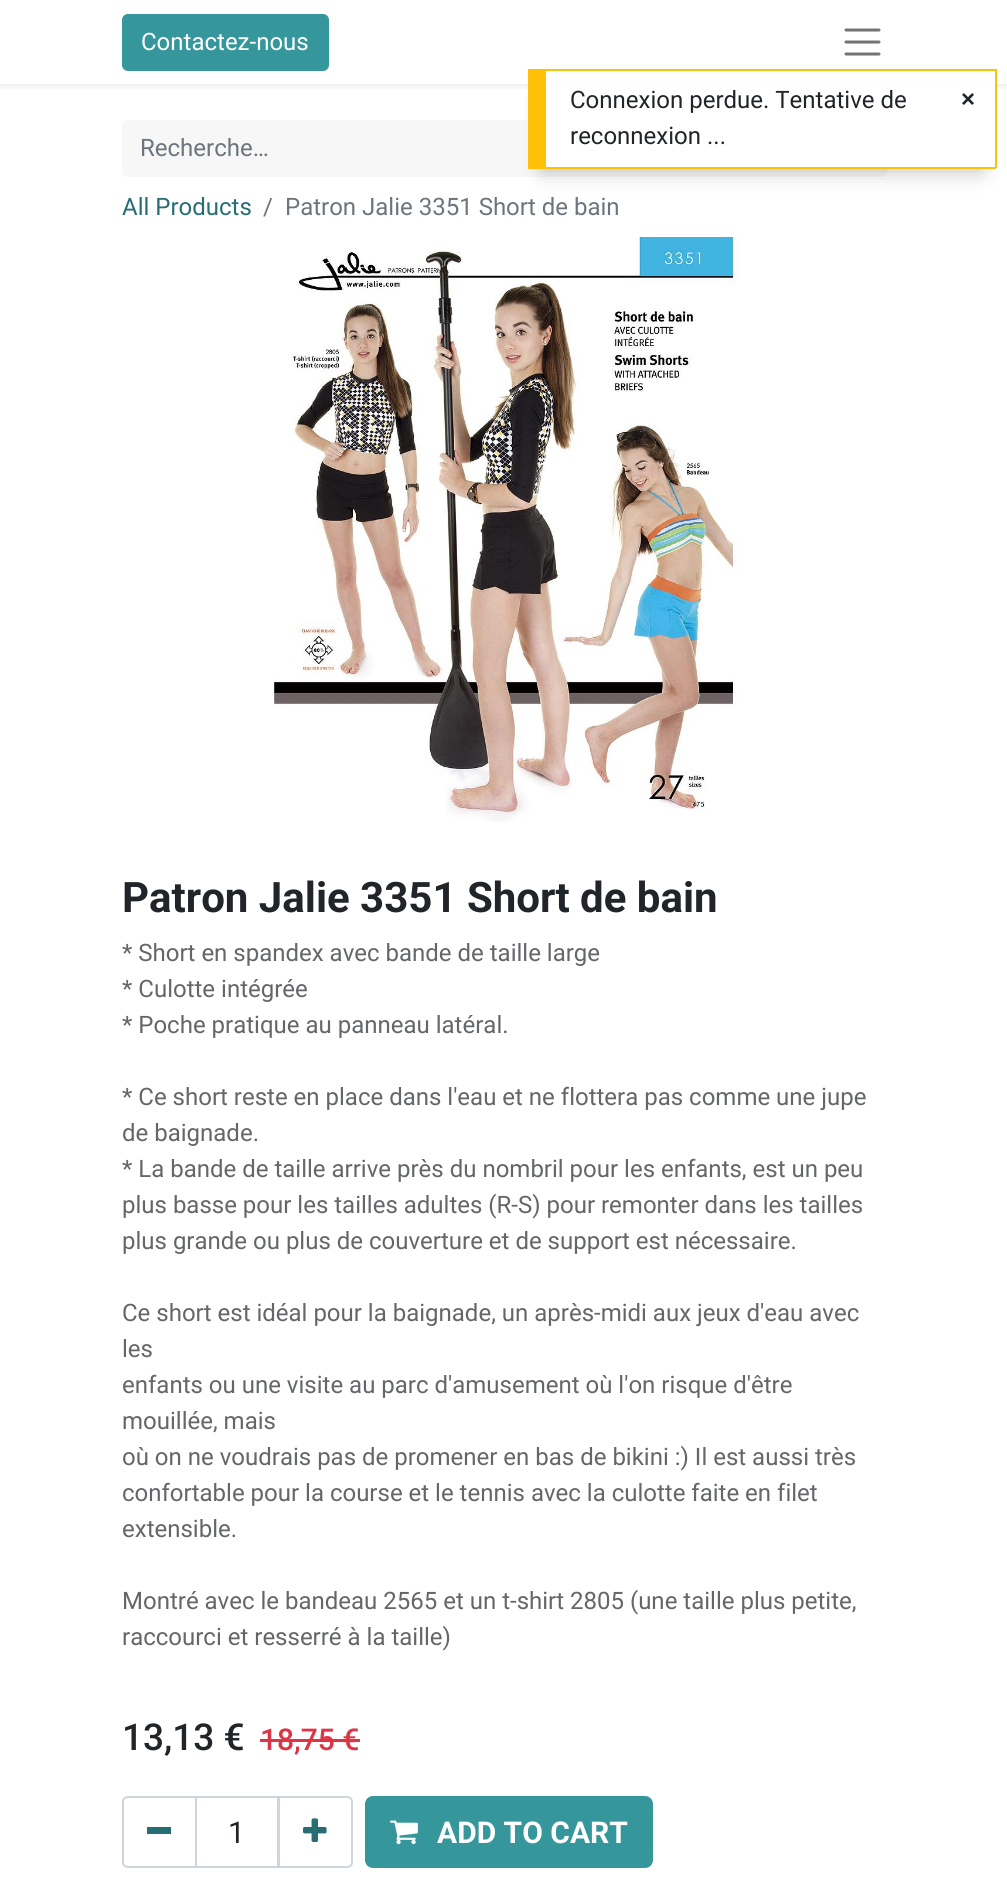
#include <cairo.h>
#include <math.h>
#include <stddef.h>

static cairo_t *c;
static void C(unsigned color){cairo_set_source_rgb(c, (color >> 16) / 255.0, (color >> 8 & 255) / 255.0, (color & 255) / 255.0);}
static void F(const char *family, double size, int italic, int bold){cairo_select_font_face(c, family, italic ? CAIRO_FONT_SLANT_ITALIC : CAIRO_FONT_SLANT_NORMAL,bold ? CAIRO_FONT_WEIGHT_BOLD : CAIRO_FONT_WEIGHT_NORMAL);cairo_set_font_size(c, size);}
static void T(double x, double y, const char *s){cairo_move_to(c, x, y);cairo_show_text(c, s);}
static void R(double x, double y, double w, double h){cairo_rectangle(c, x, y, w, h);cairo_fill(c);}
static void Q(double x, double y, double w, double h, double r){cairo_new_sub_path(c);cairo_arc(c, x + w - r, y + h - r, r, 0, M_PI / 2);cairo_arc(c, x + r, y + h - r, r, M_PI / 2, M_PI);cairo_arc(c, x + r, y + r, r, M_PI, 1.5 * M_PI);cairo_arc(c, x + w - r, y + r, r, 1.5 * M_PI, 2 * M_PI);cairo_close_path(c);}
static void S(double x, double y, double w, double h, double r, double blur, double alpha){cairo_push_group_with_content(c, CAIRO_CONTENT_ALPHA);cairo_set_operator(c, CAIRO_OPERATOR_SOURCE);for (int i = 15; i >= -15 && fmin(w, h) + blur * i / 3 > 0; i -= 2) {double e = blur * i / 6;cairo_set_source_rgba(c, 0, 0, 0, alpha * erfc((i - 1) / 8.5) / 2);Q(x - e, y - e, w + 2 * e, h + 2 * e, fmax(0, fmin(r + e + blur * .6, fmin(w, h) / 2 + e)));cairo_fill(c);}cairo_pattern_t *soft = cairo_pop_group(c);cairo_mask(c, soft);cairo_pattern_destroy(soft);}
static void I(const char *path, double x, double y, double w, double h){cairo_surface_t *image = cairo_image_surface_create_from_png(path);cairo_save(c);cairo_set_source_surface(c, image, x, y);cairo_rectangle(c, x, y, w, h);cairo_fill(c);cairo_restore(c);cairo_surface_destroy(image);}
int main(void) {
cairo_surface_t *surface = cairo_image_surface_create(CAIRO_FORMAT_RGB24, 1007, 1883);
c = cairo_create(surface);
cairo_font_options_t *options = cairo_font_options_create();
cairo_font_options_set_hint_metrics(options, CAIRO_HINT_METRICS_OFF);
cairo_font_options_set_hint_style(options, CAIRO_HINT_STYLE_NONE);
cairo_set_font_options(c, options);
cairo_set_miter_limit(c, 4);
C(0xffffff);
cairo_paint(c);
cairo_save(c);
cairo_rectangle(c,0,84,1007,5);
cairo_clip(c);
C(0x000000);
S(0,3,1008,84,0,3,.07);
cairo_restore(c);
C(0x35979c);
Q(123,15,205,55,5);
cairo_fill_preserve(c);
cairo_stroke(c);
F("Roboto",24,0,0);
C(0xffffff);
T(141,50,"Contactez-nous");
cairo_new_path(c);
cairo_move_to(c,846,30);
cairo_line_to(c,879,30);
cairo_move_to(c,846,42);
cairo_line_to(c,879,42);
cairo_move_to(c,846,54);
cairo_line_to(c,879,54);
C(0x737373);
cairo_set_line_width(c,3);
cairo_set_line_cap(c,CAIRO_LINE_CAP_ROUND);
cairo_stroke(c);
C(0xf7f7f7);
cairo_new_path(c);
cairo_move_to(c,128,120);
cairo_line_to(c,825,120);
cairo_line_to(c,825,177);
cairo_line_to(c,128,177);
cairo_curve_to(c,124.5,177,122,174.5,122,171);
cairo_line_to(c,122,126);
cairo_curve_to(c,122,122.5,124.5,120,128,120);
cairo_close_path(c);
cairo_fill(c);
C(0x6c757d);
T(140,156,"Recherche…");
C(0xf7f7f7);
cairo_new_path(c);
cairo_move_to(c,824,120);
cairo_line_to(c,881,120);
cairo_curve_to(c,884.5,120,887,122.5,887,126);
cairo_line_to(c,887,171);
cairo_curve_to(c,887,174.5,884.5,177,881,177);
cairo_line_to(c,824,177);
cairo_close_path(c);
cairo_fill(c);
C(0x276e72);
T(122,215,"All Products");
C(0x6c757d);
T(263,215,"/");
T(285,215,"Patron Jalie 3351 Short de bain");
I("1.png",274,237,465,585);
F("Roboto",42,0,1);
C(0x212529);
T(122,912,"Patron Jalie 3351 Short de bain");
F("Roboto",24,0,0);
C(0x646669);
T(122,961,"* Short en spandex avec bande de taille large");
T(122,997,"* Culotte intégrée");
T(122,1033,"* Poche pratique au panneau latéral.");
T(122,1105,"* Ce short reste en place dans l'eau et ne flottera pas comme une jupe");
T(122,1141,"de baignade.");
T(122,1177,"* La bande de taille arrive près du nombril pour les enfants, est un peu");
T(122,1213,"plus basse pour les tailles adultes (R-S) pour remonter dans les tailles");
T(122,1249,"plus grande ou plus de couverture et de support est nécessaire.");
T(122,1321,"Ce short est idéal pour la baignade, un après-midi aux jeux d'eau avec");
T(122,1357,"les");
T(122,1393,"enfants ou une visite au parc d'amusement où l'on risque d'être");
T(122,1429,"mouillée, mais");
T(122,1465,"où on ne voudrais pas de promener en bas de bikini :) Il est aussi très");
T(122,1501,"confortable pour la course et le tennis avec la culotte faite en filet");
T(122,1537,"extensible.");
T(122,1609,"Montré avec le bandeau 2565 et un t-shirt 2805 (une taille plus petite,");
T(122,1645,"raccourci et resserré à la taille)");
F("Roboto Medium",37,0,0);
C(0x212529);
T(122,1750,"13,13 €");
F("Roboto Medium",30,0,0);
C(0xdc3545);
T(260,1750,"18,75 €");
R(260,1739,100,3);
cairo_rectangle(c,196,1797,82,70);
C(0xced4da);
cairo_set_line_width(c,2);
cairo_set_line_cap(c,CAIRO_LINE_CAP_BUTT);
cairo_stroke(c);
cairo_new_path(c);
cairo_move_to(c,128,1797);
cairo_line_to(c,196,1797);
cairo_line_to(c,196,1867);
cairo_line_to(c,128,1867);
cairo_curve_to(c,125,1867,123,1865,123,1862);
cairo_line_to(c,123,1802);
cairo_curve_to(c,123,1799,125,1797,128,1797);
cairo_close_path(c);
cairo_stroke(c);
C(0x276e72);
R(147,1827,24,7);
F("Roboto",30,0,0);
C(0x212529);
T(228,1843,"1");
cairo_new_path(c);
cairo_move_to(c,279,1797);
cairo_line_to(c,347,1797);
cairo_curve_to(c,350,1797,352,1799,352,1802);
cairo_line_to(c,352,1862);
cairo_curve_to(c,352,1865,350,1867,347,1867);
cairo_line_to(c,279,1867);
cairo_close_path(c);
C(0xced4da);
cairo_stroke(c);
I("2.png",303,1818,24,24);
C(0x35979c);
Q(366,1797,286,70,7);
cairo_fill_preserve(c);
cairo_stroke(c);
I("3.png",390,1820,28,25);
F("Roboto",30,0,1);
C(0xffffff);
T(437,1843,"ADD TO CART");
C(0x000000);
S(543,102,438,69,0,10.5,.25);
C(0xffffff);
R(546,84,449,83);
C(0xffc107);
R(546,69,450,2);
R(995,69,2,99);
R(528,167,468,2);
R(528,69,18,98);
F("Roboto",24,0,0);
C(0x212529);
T(570,108,"Connexion perdue. Tentative de");
T(570,144,"reconnexion ...");
F("Liberation Sans",24,0,1);
T(961,107,"×");
cairo_surface_write_to_png(surface, "o.png");
cairo_font_options_destroy(options);
cairo_destroy(c);
cairo_surface_destroy(surface);
return 0;
}
